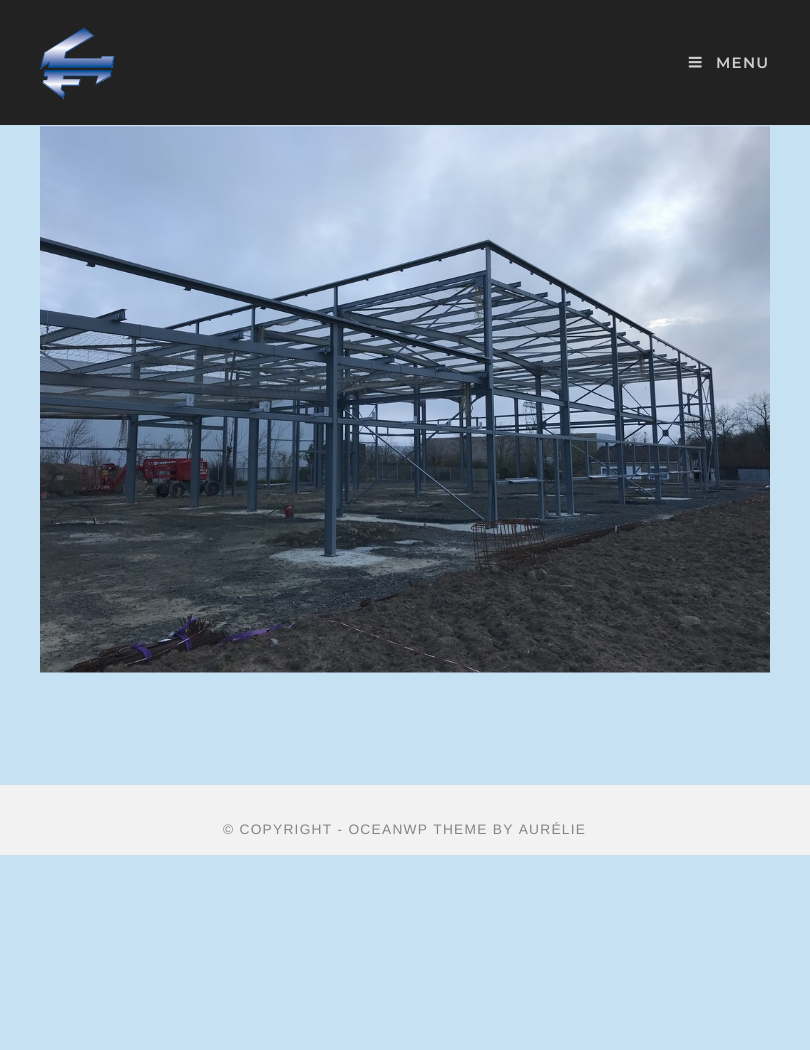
#include <cairo.h>
#include <math.h>
#include <stddef.h>

static cairo_t *c;
static void C(unsigned color){cairo_set_source_rgb(c, (color >> 16) / 255.0, (color >> 8 & 255) / 255.0, (color & 255) / 255.0);}
static void F(const char *family, double size, int italic, int bold){cairo_select_font_face(c, family, italic ? CAIRO_FONT_SLANT_ITALIC : CAIRO_FONT_SLANT_NORMAL,bold ? CAIRO_FONT_WEIGHT_BOLD : CAIRO_FONT_WEIGHT_NORMAL);cairo_set_font_size(c, size);}
static void L(double x, double y, const char *s, double letter, double word){cairo_move_to(c, x, y);while (*s) {char ch[5] = {0};int n = 0;do ch[n++] = *s++; while ((*s & 0xC0) == 0x80);cairo_show_text(c, ch);cairo_rel_move_to(c, letter + word * (*ch == ' '), 0);}}
static void R(double x, double y, double w, double h){cairo_rectangle(c, x, y, w, h);cairo_fill(c);}
static void I(const char *path, double x, double y, double w, double h){cairo_surface_t *image = cairo_image_surface_create_from_png(path);cairo_save(c);cairo_set_source_surface(c, image, x, y);cairo_rectangle(c, x, y, w, h);cairo_fill(c);cairo_restore(c);cairo_surface_destroy(image);}
int main(void) {
cairo_surface_t *surface = cairo_image_surface_create(CAIRO_FORMAT_RGB24, 810, 1050);
c = cairo_create(surface);
cairo_font_options_t *options = cairo_font_options_create();
cairo_font_options_set_hint_metrics(options, CAIRO_HINT_METRICS_OFF);
cairo_font_options_set_hint_style(options, CAIRO_HINT_STYLE_NONE);
cairo_set_font_options(c, options);
cairo_set_miter_limit(c, 4);
C(0xc6e1f2);
cairo_paint(c);
C(0x222222);
R(0,0,810,125);
I("1.png",40,27,75,72);
I("2.png",688,56,14,12);
F("Montserrat SemiBold",15,0,0);
C(0xcecece);
L(716,68,"MENU",1.25,0);
I("3.png",40,126,730,547);
C(0xf2f2f2);
R(0,785,810,70);
F("Liberation Sans",13.75,0,0);
C(0x848484);
L(223,834,"© COPYRIGHT - OCEANWP THEME BY AURÉLIE",1.25,0);
cairo_surface_write_to_png(surface, "o.png");
cairo_font_options_destroy(options);
cairo_destroy(c);
cairo_surface_destroy(surface);
return 0;
}
